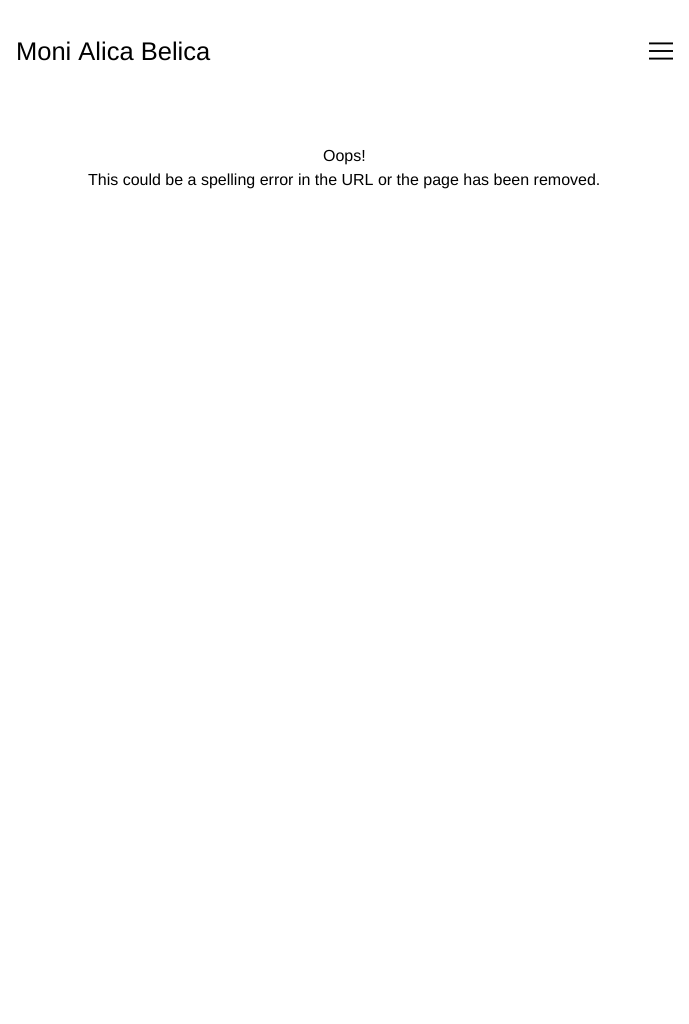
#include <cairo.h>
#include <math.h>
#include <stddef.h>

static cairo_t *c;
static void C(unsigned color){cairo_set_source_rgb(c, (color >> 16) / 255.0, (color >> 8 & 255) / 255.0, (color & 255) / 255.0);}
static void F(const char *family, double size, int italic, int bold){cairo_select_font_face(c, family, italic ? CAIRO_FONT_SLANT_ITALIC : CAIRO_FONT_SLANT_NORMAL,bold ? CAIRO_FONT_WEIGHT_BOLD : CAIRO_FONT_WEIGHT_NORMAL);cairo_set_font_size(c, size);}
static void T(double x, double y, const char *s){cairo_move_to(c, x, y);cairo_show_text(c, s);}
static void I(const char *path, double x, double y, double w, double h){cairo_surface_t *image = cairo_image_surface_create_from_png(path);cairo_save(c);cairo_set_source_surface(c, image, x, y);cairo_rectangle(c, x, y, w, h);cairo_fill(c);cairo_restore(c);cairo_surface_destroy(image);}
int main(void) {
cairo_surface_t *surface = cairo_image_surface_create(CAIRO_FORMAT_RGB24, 689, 1024);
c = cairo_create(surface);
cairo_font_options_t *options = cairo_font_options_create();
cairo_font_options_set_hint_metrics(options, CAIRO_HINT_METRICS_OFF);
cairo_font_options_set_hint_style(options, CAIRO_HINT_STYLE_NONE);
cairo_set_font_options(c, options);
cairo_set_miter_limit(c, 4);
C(0xffffff);
cairo_paint(c);
F("Liberation Sans",25.5,0,0);
C(0x000000);
T(16,60,"Moni Alica Belica");
I("1.png",649,42,24,18);
F("Liberation Sans",16,0,0);
T(323,161,"Oops!");
T(88,185,"This could be a spelling error in the URL or the page has been removed.");
cairo_surface_write_to_png(surface, "o.png");
cairo_font_options_destroy(options);
cairo_destroy(c);
cairo_surface_destroy(surface);
return 0;
}
